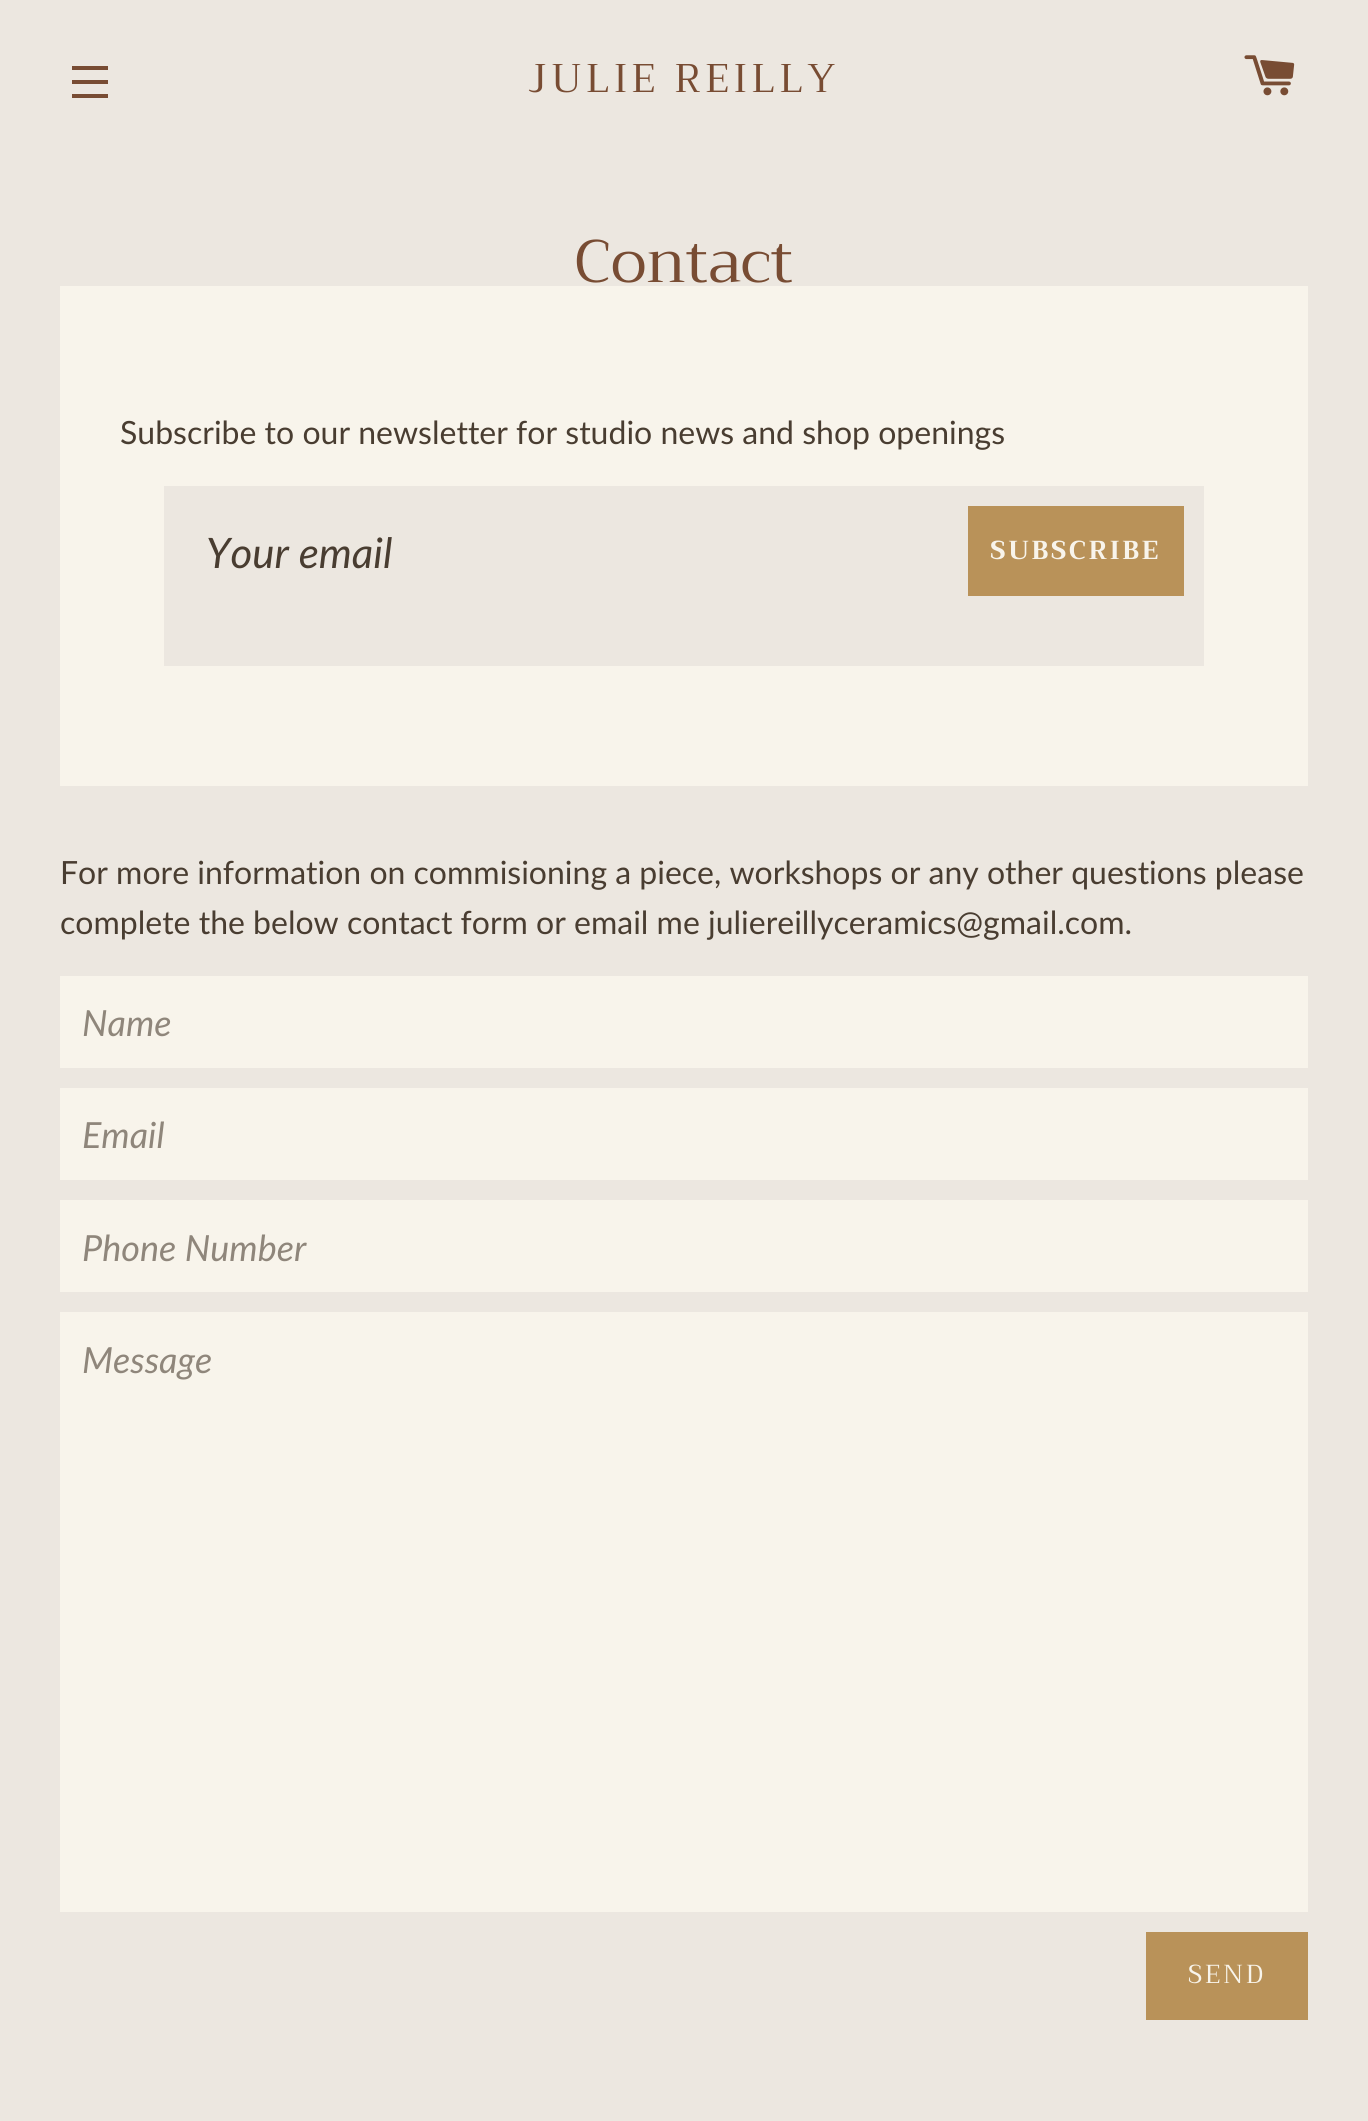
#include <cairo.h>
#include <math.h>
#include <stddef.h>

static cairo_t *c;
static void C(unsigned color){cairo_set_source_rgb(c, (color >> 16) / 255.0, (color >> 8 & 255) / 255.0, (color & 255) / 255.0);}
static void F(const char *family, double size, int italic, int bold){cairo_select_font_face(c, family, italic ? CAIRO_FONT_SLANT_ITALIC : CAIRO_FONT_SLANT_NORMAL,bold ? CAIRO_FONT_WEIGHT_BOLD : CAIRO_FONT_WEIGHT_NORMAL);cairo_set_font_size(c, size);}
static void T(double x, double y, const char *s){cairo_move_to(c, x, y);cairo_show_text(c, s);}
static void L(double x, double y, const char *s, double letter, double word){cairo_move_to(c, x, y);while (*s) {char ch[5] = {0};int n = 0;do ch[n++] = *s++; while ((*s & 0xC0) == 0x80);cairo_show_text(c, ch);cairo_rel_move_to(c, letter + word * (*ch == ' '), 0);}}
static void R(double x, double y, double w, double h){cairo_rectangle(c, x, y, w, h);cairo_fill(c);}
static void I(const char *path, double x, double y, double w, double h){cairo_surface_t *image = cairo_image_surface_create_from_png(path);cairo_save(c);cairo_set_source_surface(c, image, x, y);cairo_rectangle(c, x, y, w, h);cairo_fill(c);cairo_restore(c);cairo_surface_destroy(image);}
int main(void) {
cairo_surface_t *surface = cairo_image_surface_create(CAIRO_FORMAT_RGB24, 1368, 2121);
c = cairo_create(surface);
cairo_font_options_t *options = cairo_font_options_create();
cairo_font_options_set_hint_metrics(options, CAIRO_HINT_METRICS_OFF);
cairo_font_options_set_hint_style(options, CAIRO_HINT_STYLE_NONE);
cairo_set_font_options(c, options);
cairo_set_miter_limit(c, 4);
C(0xece7e0);
cairo_paint(c);
C(0x784c33);
R(72,66,36,4);
R(72,80,36,4);
R(72,94,36,4);
F("Trirong",40,0,0);
L(528,92,"JULIE REILLY",4,0);
I("1.png",1244,55,51,41);
F("Trirong",60,0,0);
T(574,282,"Contact");
C(0xf8f4eb);
R(60,286,1248,500);
F("Lato",32,0,0);
C(0x493d31);
T(120,444,"Subscribe to our newsletter for studio news and shop openings");
C(0xece7e0);
R(164,486,1040,180);
F("Lato",42,1,0);
C(0x493d31);
T(206,568,"Your email");
C(0xb99259);
R(968,506,216,90);
F("Trirong",26,0,1);
C(0xf8f4eb);
L(990,559,"SUBSCRIBE",2.5,0);
F("Lato",32,0,0);
C(0x493d31);
T(60,884,"For more information on commisioning a piece, workshops or any other questions please");
T(60,934,"complete the below contact form or email me juliereillyceramics@gmail.com.");
C(0xf8f4eb);
R(60,976,1248,92);
F("Lato",36,1,0);
C(0x8f867b);
T(82,1036,"Name");
C(0xf8f4eb);
R(60,1088,1248,92);
C(0x8f867b);
T(82,1148,"Email");
C(0xf8f4eb);
R(60,1200,1248,92);
C(0x8f867b);
T(82,1261,"Phone Number");
C(0xf8f4eb);
R(60,1312,1248,600);
C(0x8f867b);
T(82,1373,"Message");
C(0xb99259);
R(1146,1932,162,88);
F("Trirong",26,0,0);
C(0xf8f4eb);
L(1188,1983,"SEND",2.5,0);
cairo_surface_write_to_png(surface, "o.png");
cairo_font_options_destroy(options);
cairo_destroy(c);
cairo_surface_destroy(surface);
return 0;
}
